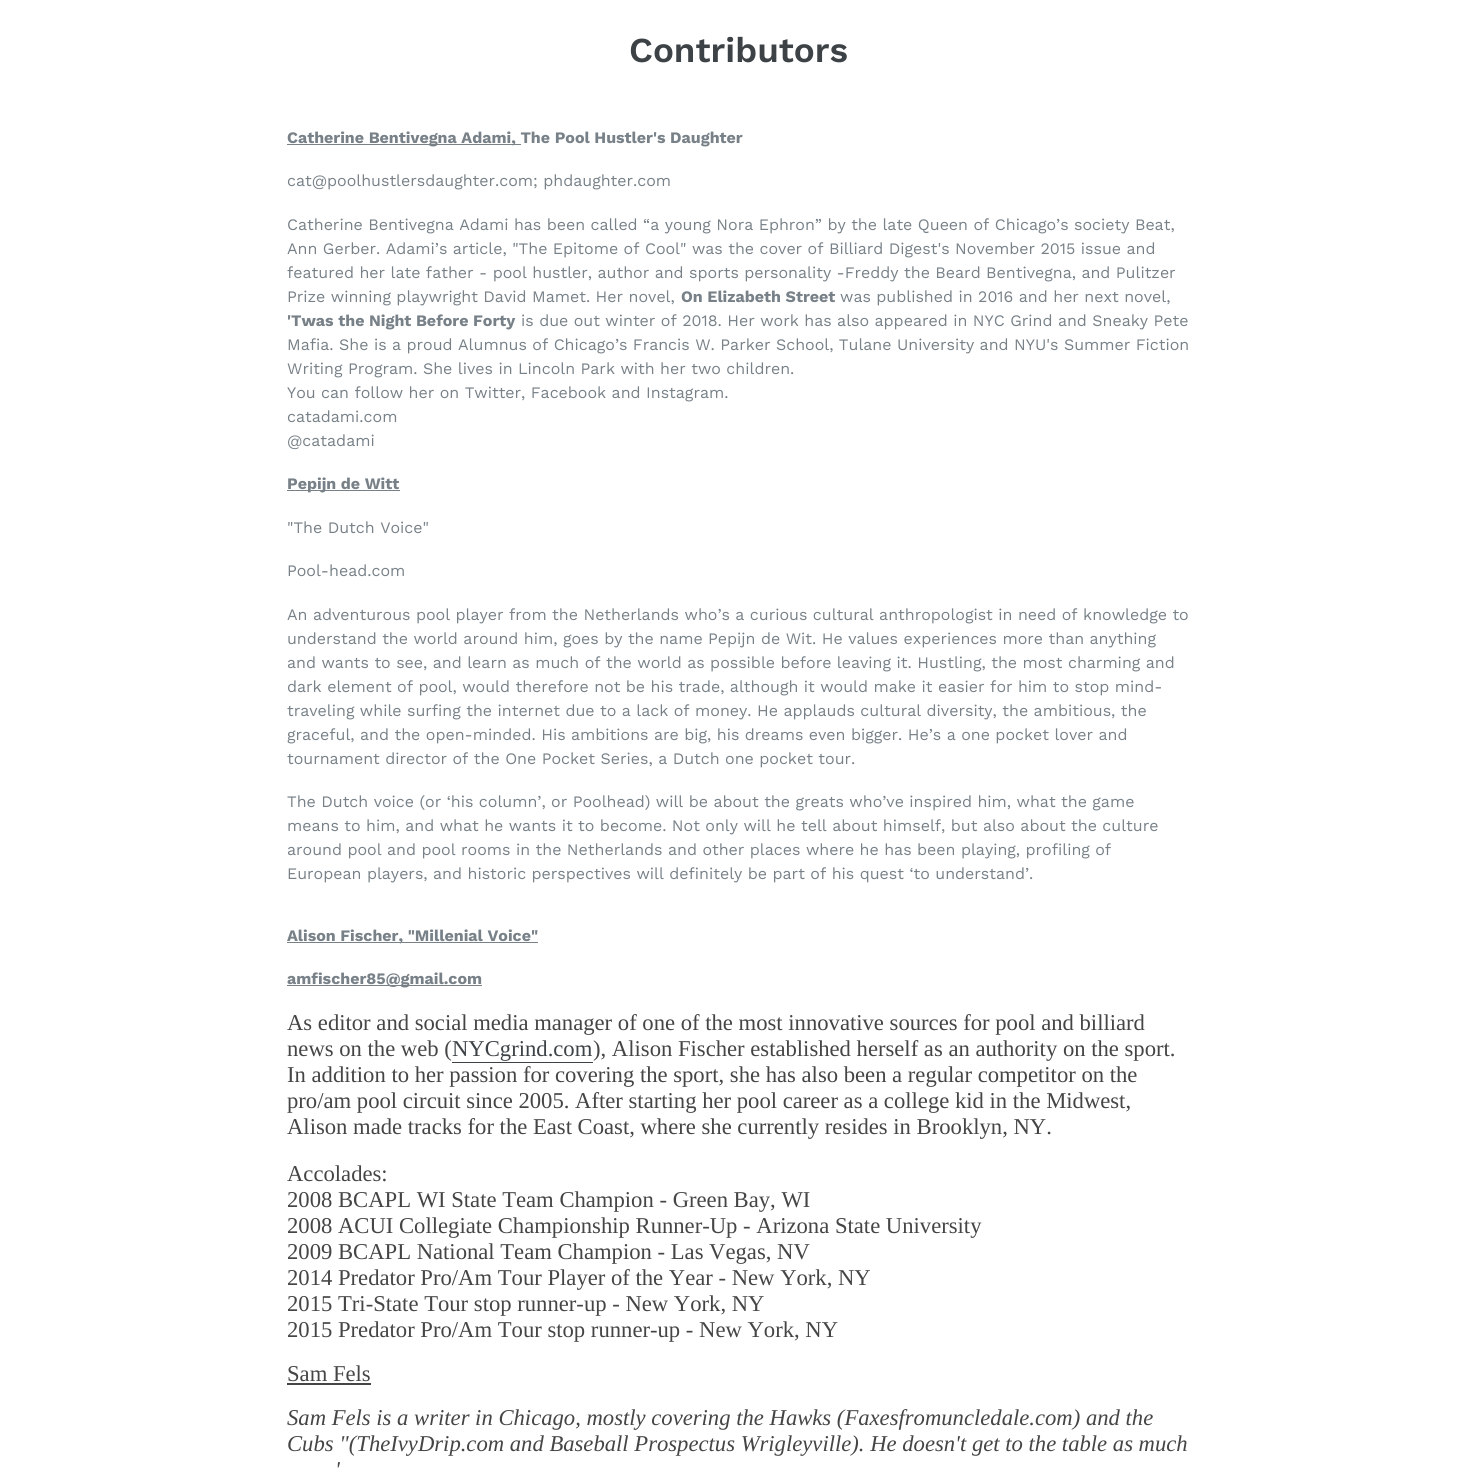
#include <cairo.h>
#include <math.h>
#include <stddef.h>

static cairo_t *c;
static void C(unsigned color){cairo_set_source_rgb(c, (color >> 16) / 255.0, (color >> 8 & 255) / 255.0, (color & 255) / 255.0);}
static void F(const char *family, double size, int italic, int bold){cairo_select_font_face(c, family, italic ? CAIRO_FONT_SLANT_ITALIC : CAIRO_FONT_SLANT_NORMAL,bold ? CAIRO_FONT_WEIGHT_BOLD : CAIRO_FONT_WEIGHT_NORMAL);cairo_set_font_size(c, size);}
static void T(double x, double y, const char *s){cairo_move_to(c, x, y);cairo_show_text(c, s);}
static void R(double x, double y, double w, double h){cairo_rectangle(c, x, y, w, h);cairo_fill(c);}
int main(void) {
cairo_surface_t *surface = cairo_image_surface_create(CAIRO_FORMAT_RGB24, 1478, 1470);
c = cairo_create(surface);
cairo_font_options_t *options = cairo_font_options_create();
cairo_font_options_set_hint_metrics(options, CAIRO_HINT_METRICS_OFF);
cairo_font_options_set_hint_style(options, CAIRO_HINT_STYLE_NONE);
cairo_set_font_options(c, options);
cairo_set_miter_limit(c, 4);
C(0xffffff);
cairo_paint(c);
F("Work Sans SemiBold",35,0,0);
C(0x3d4246);
T(629,62,"Contributors");
C(0x788188);
R(287,144,234,1);
F("Work Sans",16,0,1);
T(287,143,"Catherine Bentivegna Adami, The Pool Hustler's Daughter");
F("Work Sans",16,0,0);
T(287,186,"cat@poolhustlersdaughter.com; phdaughter.com");
T(287,230,"Catherine Bentivegna Adami has been called “a young Nora Ephron” by the late Queen of Chicago’s society Beat,");
T(287,254,"Ann Gerber. Adami’s article, \"The Epitome of Cool\" was the cover of Billiard Digest's November 2015 issue and");
T(287,278,"featured her late father - pool hustler, author and sports personality -Freddy the Beard Bentivegna, and Pulitzer");
T(287,302,"Prize winning playwright David Mamet. Her novel,");
F("Work Sans",16,0,1);
T(681,302,"On Elizabeth Street");
F("Work Sans",16,0,0);
T(840,302,"was published in 2016 and her next novel,");
F("Work Sans",16,0,1);
T(287,326,"'Twas the Night Before Forty");
F("Work Sans",16,0,0);
T(521,326,"is due out winter of 2018. Her work has also appeared in NYC Grind and Sneaky Pete");
T(287,350,"Mafia. She is a proud Alumnus of Chicago’s Francis W. Parker School, Tulane University and NYU's Summer Fiction");
T(287,374,"Writing Program. She lives in Lincoln Park with her two children.");
T(287,398,"You can follow her on Twitter, Facebook and Instagram.");
T(287,422,"catadami.com");
T(287,446,"@catadami");
R(287,490,113,1);
F("Work Sans",16,0,1);
T(287,489,"Pepijn de Witt");
F("Work Sans",16,0,0);
T(287,533,"\"The Dutch Voice\"");
T(287,576,"Pool-head.com");
T(287,620,"An adventurous pool player from the Netherlands who’s a curious cultural anthropologist in need of knowledge to");
T(287,644,"understand the world around him, goes by the name Pepijn de Wit. He values experiences more than anything");
T(287,668,"and wants to see, and learn as much of the world as possible before leaving it. Hustling, the most charming and");
T(287,692,"dark element of pool, would therefore not be his trade, although it would make it easier for him to stop mind-");
T(287,716,"traveling while surfing the internet due to a lack of money. He applauds cultural diversity, the ambitious, the");
T(287,740,"graceful, and the open-minded. His ambitions are big, his dreams even bigger. He’s a one pocket lover and");
T(287,764,"tournament director of the One Pocket Series, a Dutch one pocket tour.");
T(287,807,"The Dutch voice (or ‘his column’, or Poolhead) will be about the greats who’ve inspired him, what the game");
T(287,831,"means to him, and what he wants it to become. Not only will he tell about himself, but also about the culture");
T(287,855,"around pool and pool rooms in the Netherlands and other places where he has been playing, profiling of");
T(287,879,"European players, and historic perspectives will definitely be part of his quest ‘to understand’.");
R(287,942,251,1);
F("Work Sans",16,0,1);
T(287,941,"Alison Fischer, \"Millenial Voice\"");
R(287,985,195,1);
T(287,984,"amfischer85@gmail.com");
F("Liberation Serif",22.65,0,0);
C(0x454545);
T(287,1030,"As editor and social media manager of one of the most innovative sources for pool and billiard");
T(287,1056,"news on the web (");
C(0x3d4246);
R(452,1062,141,1);
T(452,1056,"NYCgrind.com");
C(0x454545);
T(593,1056,"), Alison Fischer established herself as an authority on the sport.");
T(287,1082,"In addition to her passion for covering the sport, she has also been a regular competitor on the");
T(287,1108,"pro/am pool circuit since 2005. After starting her pool career as a college kid in the Midwest,");
T(287,1134,"Alison made tracks for the East Coast, where she currently resides in Brooklyn, NY.");
T(287,1181,"Accolades:");
T(287,1207,"2008 BCAPL WI State Team Champion - Green Bay, WI");
T(287,1233,"2008 ACUI Collegiate Championship Runner-Up - Arizona State University");
T(287,1259,"2009 BCAPL National Team Champion - Las Vegas, NV");
T(287,1285,"2014 Predator Pro/Am Tour Player of the Year - New York, NY");
T(287,1311,"2015 Tri-State Tour stop runner-up - New York, NY");
T(287,1337,"2015 Predator Pro/Am Tour stop runner-up - New York, NY");
T(287,1381,"Sam Fels");
R(287,1383,84,2);
F("Liberation Serif",22.65,1,0);
T(287,1425,"Sam Fels is a writer in Chicago, mostly covering the Hawks (Faxesfromuncledale.com) and the");
T(287,1451,"Cubs \"(TheIvyDrip.com and Baseball Prospectus Wrigleyville). He doesn't get to the table as much");
T(335,1477,"'");
cairo_surface_write_to_png(surface, "o.png");
cairo_font_options_destroy(options);
cairo_destroy(c);
cairo_surface_destroy(surface);
return 0;
}
